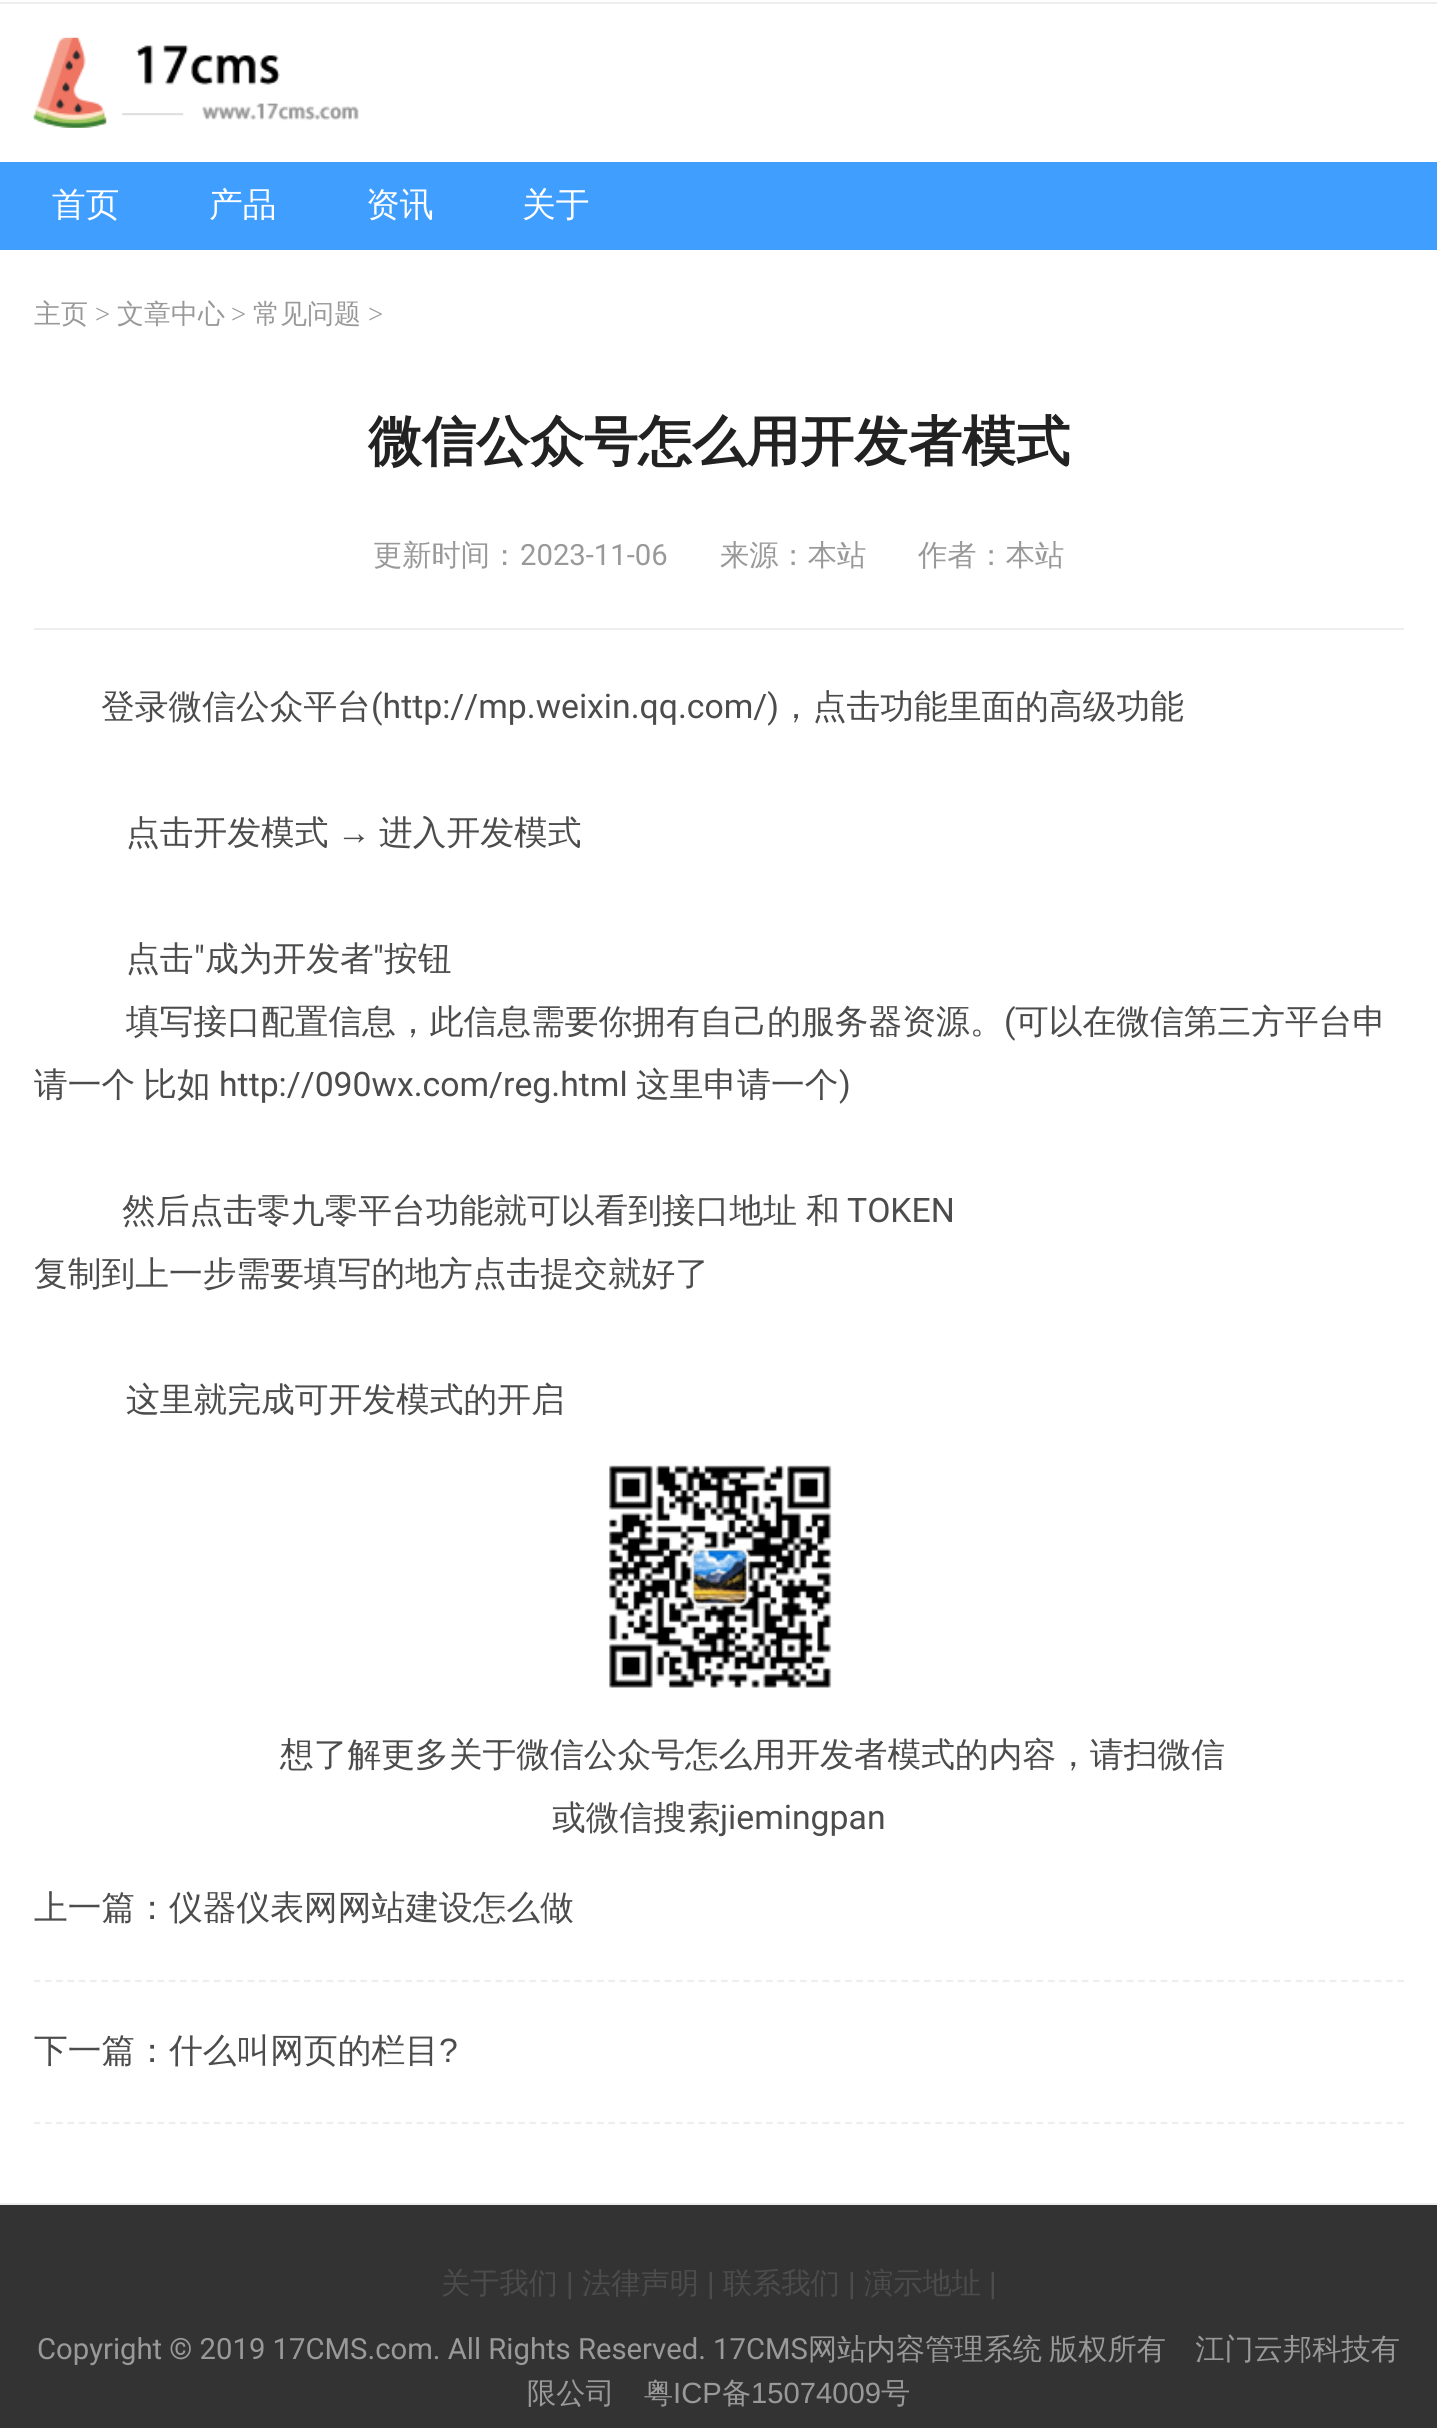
#include <cairo.h>
#include <math.h>
#include <stddef.h>

static cairo_t *c;
static void C(unsigned color){cairo_set_source_rgb(c, (color >> 16) / 255.0, (color >> 8 & 255) / 255.0, (color & 255) / 255.0);}
static void F(const char *family, double size, int italic, int bold){cairo_select_font_face(c, family, italic ? CAIRO_FONT_SLANT_ITALIC : CAIRO_FONT_SLANT_NORMAL,bold ? CAIRO_FONT_WEIGHT_BOLD : CAIRO_FONT_WEIGHT_NORMAL);cairo_set_font_size(c, size);}
static void T(double x, double y, const char *s){cairo_move_to(c, x, y);cairo_show_text(c, s);}
static void L(double x, double y, const char *s, double letter, double word){cairo_move_to(c, x, y);while (*s) {char ch[5] = {0};int n = 0;do ch[n++] = *s++; while ((*s & 0xC0) == 0x80);cairo_show_text(c, ch);cairo_rel_move_to(c, letter + word * (*ch == ' '), 0);}}
static void R(double x, double y, double w, double h){cairo_rectangle(c, x, y, w, h);cairo_fill(c);}
static void I(const char *path, double x, double y, double w, double h){cairo_surface_t *image = cairo_image_surface_create_from_png(path);cairo_save(c);cairo_set_source_surface(c, image, x, y);cairo_rectangle(c, x, y, w, h);cairo_fill(c);cairo_restore(c);cairo_surface_destroy(image);}
int main(void) {
cairo_surface_t *surface = cairo_image_surface_create(CAIRO_FORMAT_RGB24, 1437, 2428);
c = cairo_create(surface);
cairo_font_options_t *options = cairo_font_options_create();
cairo_font_options_set_hint_metrics(options, CAIRO_HINT_METRICS_OFF);
cairo_font_options_set_hint_style(options, CAIRO_HINT_STYLE_NONE);
cairo_set_font_options(c, options);
cairo_set_miter_limit(c, 4);
C(0xffffff);
cairo_paint(c);
C(0xeeeeee);
R(0,2,1437,2);
I("1.png",33,37,326,91);
C(0x409eff);
R(0,162,1437,88);
F("WenQuanYi Zen Hei Medium",33.75,0,0);
C(0xffffff);
T(52,216,"首页");
T(209,216,"产品");
T(366,216,"资讯");
T(522,216,"关于");
F("WenQuanYi Zen Hei Medium",27,0,0);
C(0x999999);
T(34,323,"主页");
F("Liberation Serif",27,0,0);
T(95,323,">");
F("WenQuanYi Zen Hei Medium",27,0,0);
T(117,323,"文章中心");
F("Liberation Serif",27,0,0);
T(231,323,">");
F("WenQuanYi Zen Hei Medium",27,0,0);
T(253,323,"常见问题");
F("Liberation Serif",27,0,0);
T(368,323,">");
C(0xeeeeee);
R(34,628,1370,2);
F("WenQuanYi Zen Hei",54,0,1);
C(0x222222);
T(368,460,"微信公众号怎么用开发者模式");
F("WenQuanYi Zen Hei Medium",29.25,0,0);
C(0x999999);
T(373,565,"更新时间：");
F("Roboto",29.25,0,0);
T(520,565,"2023-11-06");
F("WenQuanYi Zen Hei Medium",29.25,0,0);
T(720,565,"来源：本站");
T(918,565,"作者：本站");
F("WenQuanYi Zen Hei Medium",33.75,0,0);
C(0x4c4c4c);
T(101,718,"登录微信公众平台");
F("Roboto",33.75,0,0);
T(371,718,"(http://mp.weixin.qq.com/)");
F("WenQuanYi Zen Hei Medium",33.75,0,0);
T(779,718,"，点击功能里面的高级功能");
T(126,844,"点击开发模式");
F("Liberation Sans",33.75,0,0);
T(337,844,"→");
F("WenQuanYi Zen Hei Medium",33.75,0,0);
T(379,844,"进入开发模式");
T(126,970,"点击");
F("Roboto",33.75,0,0);
T(194,970,"\"");
F("WenQuanYi Zen Hei Medium",33.75,0,0);
T(205,970,"成为开发者");
F("Roboto",33.75,0,0);
T(373,970,"\"");
F("WenQuanYi Zen Hei Medium",33.75,0,0);
T(384,970,"按钮");
T(126,1033,"填写接口配置信息，此信息需要你拥有自己的服务器资源。");
F("Roboto",33.75,0,0);
T(1004,1033,"(");
F("WenQuanYi Zen Hei Medium",33.75,0,0);
T(1015,1033,"可以在微信第三方平台申");
L(34,1096,"请一个 比如",0,-2);
F("Roboto",33.75,0,0);
T(219,1096,"http://090wx.com/reg.html");
F("WenQuanYi Zen Hei Medium",33.75,0,0);
T(636,1096,"这里申请一个");
F("Roboto",33.75,0,0);
T(839,1096,")");
F("WenQuanYi Zen Hei Medium",33.75,0,0);
L(122,1222,"然后点击零九零平台功能就可以看到接口地址 和",0,-1);
F("Roboto",33.75,0,0);
T(847,1222,"TOKEN");
F("WenQuanYi Zen Hei Medium",33.75,0,0);
T(34,1285,"复制到上一步需要填写的地方点击提交就好了");
T(126,1411,"这里就完成可开发模式的开启");
I("2.png",609,1465,223,223);
T(280,1766,"想了解更多关于微信公众号怎么用开发者模式的内容，请扫微信");
T(552,1829,"或微信搜索");
F("Roboto",33.75,0,0);
T(720,1829,"jiemingpan");
cairo_save(c);
cairo_rectangle(c,34,403,1370,1766);
cairo_clip(c);
cairo_new_path(c);
cairo_move_to(c,11,1981);
cairo_line_to(c,1426.5,1981);
C(0xeeeeee);
cairo_set_line_width(c,2.2);
cairo_set_dash(c,(double[]){6.75,4.52},2,0);
cairo_stroke(c);
cairo_restore(c);
F("WenQuanYi Zen Hei Medium",33.75,0,0);
T(34,1919,"上一篇：仪器仪表网网站建设怎么做");
cairo_save(c);
cairo_rectangle(c,34,403,1370,1766);
cairo_clip(c);
cairo_new_path(c);
cairo_move_to(c,11,2123);
cairo_line_to(c,1426.5,2123);
C(0xeeeeee);
cairo_set_line_width(c,2.2);
cairo_set_dash(c,(double[]){6.75,4.52},2,0);
cairo_stroke(c);
cairo_restore(c);
T(34,2062,"下一篇：什么叫网页的栏目");
F("Liberation Sans",33.75,0,0);
T(439,2062,"?");
C(0x333333);
R(0,2205,1437,223);
C(0xeeeeee);
R(0,2203,1437,2);
F("WenQuanYi Zen Hei Medium",29.25,0,0);
C(0x4c4c4c);
T(441,2293,"关于我们");
F("Liberation Sans",29.25,0,0);
T(566,2293,"|");
F("WenQuanYi Zen Hei Medium",29.25,0,0);
T(582,2293,"法律声明");
F("Liberation Sans",29.25,0,0);
T(707,2293,"|");
F("WenQuanYi Zen Hei Medium",29.25,0,0);
T(723,2293,"联系我们");
F("Liberation Sans",29.25,0,0);
T(848,2293,"|");
F("WenQuanYi Zen Hei Medium",29.25,0,0);
T(864,2293,"演示地址");
F("Liberation Sans",29.25,0,0);
T(989,2293,"|");
F("Roboto",29.25,0,0);
C(0x999999);
T(37,2359,"Copyright © 2019 17CMS.com. All Rights Reserved. 17CMS");
F("WenQuanYi Zen Hei Medium",29.25,0,0);
T(808,2359,"网站内容管理系统");
T(1049,2359,"版权所有　江门云邦科技有");
T(527,2403,"限公司");
T(644,2403,"粤");
F("Liberation Sans",29.25,0,0);
T(673,2403,"ICP");
F("WenQuanYi Zen Hei Medium",29.25,0,0);
T(722,2403,"备");
F("Liberation Sans",29.25,0,0);
T(751,2403,"15074009");
F("WenQuanYi Zen Hei Medium",29.25,0,0);
T(881,2403,"号");
cairo_surface_write_to_png(surface, "o.png");
cairo_font_options_destroy(options);
cairo_destroy(c);
cairo_surface_destroy(surface);
return 0;
}
